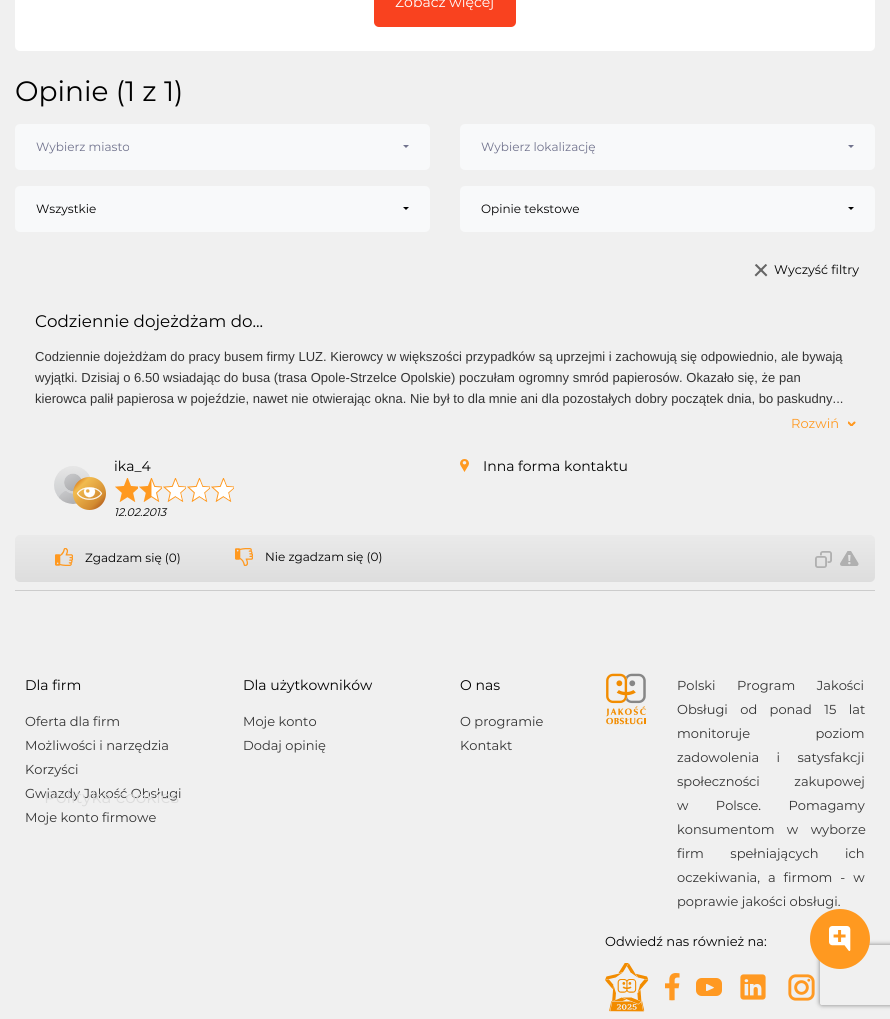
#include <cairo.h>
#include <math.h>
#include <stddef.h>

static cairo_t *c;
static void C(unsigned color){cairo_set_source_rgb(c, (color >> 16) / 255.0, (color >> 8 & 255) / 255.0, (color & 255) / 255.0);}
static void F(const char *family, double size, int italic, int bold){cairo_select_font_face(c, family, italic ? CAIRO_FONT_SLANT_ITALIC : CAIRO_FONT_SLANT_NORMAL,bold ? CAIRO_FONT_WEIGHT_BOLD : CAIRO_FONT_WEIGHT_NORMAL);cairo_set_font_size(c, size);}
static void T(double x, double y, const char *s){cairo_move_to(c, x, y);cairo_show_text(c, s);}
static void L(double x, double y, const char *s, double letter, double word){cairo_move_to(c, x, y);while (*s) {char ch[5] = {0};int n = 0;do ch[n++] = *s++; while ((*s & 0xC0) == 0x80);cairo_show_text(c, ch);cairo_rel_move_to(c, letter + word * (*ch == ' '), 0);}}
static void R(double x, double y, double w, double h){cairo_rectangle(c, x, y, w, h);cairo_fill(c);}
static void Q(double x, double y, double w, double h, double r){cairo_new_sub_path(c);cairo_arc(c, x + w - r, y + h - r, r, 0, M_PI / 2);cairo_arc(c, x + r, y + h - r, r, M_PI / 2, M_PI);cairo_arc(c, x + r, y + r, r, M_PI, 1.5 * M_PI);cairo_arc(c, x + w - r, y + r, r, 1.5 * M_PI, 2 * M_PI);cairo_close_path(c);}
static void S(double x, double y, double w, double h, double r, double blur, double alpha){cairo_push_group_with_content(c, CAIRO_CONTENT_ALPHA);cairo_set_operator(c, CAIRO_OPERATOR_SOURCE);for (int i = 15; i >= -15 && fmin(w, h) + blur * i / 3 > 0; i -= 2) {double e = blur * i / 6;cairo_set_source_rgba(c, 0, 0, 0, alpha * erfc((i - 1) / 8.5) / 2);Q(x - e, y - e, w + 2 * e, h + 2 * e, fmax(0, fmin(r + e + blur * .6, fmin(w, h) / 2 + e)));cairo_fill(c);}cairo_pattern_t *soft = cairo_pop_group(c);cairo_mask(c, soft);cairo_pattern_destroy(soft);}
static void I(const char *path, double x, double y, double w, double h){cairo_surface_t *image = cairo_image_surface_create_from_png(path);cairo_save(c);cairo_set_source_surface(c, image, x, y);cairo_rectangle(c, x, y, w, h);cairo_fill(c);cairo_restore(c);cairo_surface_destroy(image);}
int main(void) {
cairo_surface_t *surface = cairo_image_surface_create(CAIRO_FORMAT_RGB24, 890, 1019);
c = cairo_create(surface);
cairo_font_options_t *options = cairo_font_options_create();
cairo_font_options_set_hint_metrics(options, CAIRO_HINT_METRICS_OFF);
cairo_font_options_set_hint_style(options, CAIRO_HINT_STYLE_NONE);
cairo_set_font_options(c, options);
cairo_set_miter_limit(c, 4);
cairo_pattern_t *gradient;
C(0xf0f0f0);
cairo_paint(c);
C(0xffffff);
Q(15,-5,860,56,5);
cairo_fill(c);
C(0xf9421f);
Q(374,-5,142,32,5);
cairo_fill(c);
F("Montserrat",14,0,0);
C(0xffffff);
T(395,7,"Zobacz więcej");
F("Montserrat",28,0,0);
C(0x000000);
T(15,101,"Opinie (1 z 1)");
C(0xf8f9fa);
Q(15,124,415,46,5);
cairo_fill(c);
F("Montserrat",12,0,0);
C(0x71738d);
T(36,151,"Wybierz miasto");
cairo_new_path(c);
cairo_move_to(c,403,145);
cairo_line_to(c,409,145);
cairo_line_to(c,406,148);
cairo_close_path(c);
cairo_fill(c);
C(0xf8f9fa);
Q(460,124,415,46,5);
cairo_fill(c);
C(0x71738d);
T(481,151,"Wybierz lokalizację");
cairo_new_path(c);
cairo_move_to(c,848,145);
cairo_line_to(c,854,145);
cairo_line_to(c,851,148);
cairo_close_path(c);
cairo_fill(c);
C(0xf8f9fa);
Q(15,186,415,46,5);
cairo_fill(c);
C(0x000000);
T(36,213,"Wszystkie");
cairo_new_path(c);
cairo_move_to(c,403,207);
cairo_line_to(c,409,207);
cairo_line_to(c,406,210);
cairo_close_path(c);
cairo_fill(c);
C(0xf8f9fa);
Q(460,186,415,46,5);
cairo_fill(c);
C(0x000000);
T(481,213,"Opinie tekstowe");
cairo_new_path(c);
cairo_move_to(c,848,207);
cairo_line_to(c,854,207);
cairo_line_to(c,851,210);
cairo_close_path(c);
cairo_fill(c);
I("1.png",754,264,14,13);
F("Montserrat",12.5,0,0);
T(774,274,"Wyczyść filtry");
C(0xcccccc);
R(15,590,860,1);
F("Montserrat",16.75,0,0);
C(0x000000);
T(35,327,"Codziennie dojeżdżam do...");
F("Liberation Sans",13.02,0,0);
C(0x333333);
T(35,361,"Codziennie dojeżdżam do pracy busem firmy LUZ. Kierowcy w większości przypadków są uprzejmi i zachowują się odpowiednio, ale bywają");
T(35,382,"wyjątki. Dzisiaj o 6.50 wsiadając do busa (trasa Opole-Strzelce Opolskie) poczułam ogromny smród papierosów. Okazało się, że pan");
T(35,403,"kierowca palił papierosa w pojeździe, nawet nie otwierając okna. Nie był to dla mnie ani dla pozostałych dobry początek dnia, bo paskudny...");
F("Montserrat",13.02,0,0);
C(0xff9920);
T(791,428,"Rozwiń");
I("2.png",848,421,8,5);
I("3.png",54,466,37,38);
I("4.png",73,477,33,33);
F("Montserrat",14,0,0);
C(0x000000);
T(114,471,"ika_4");
I("5.png",115,478,23,24);
I("6.png",139,478,23,24);
I("7.png",163,478,23,24);
I("7.png",187,478,23,24);
I("7.png",211,478,23,24);
F("Montserrat",11,1,0);
T(114,516,"12.02.2013");
I("8.png",460,459,9,13);
F("Montserrat",14,0,0);
T(483,471,"Inna forma kontaktu");
gradient = cairo_pattern_create_linear(445,535,445,582);
cairo_pattern_add_color_stop_rgba(gradient,0,0.918,0.918,0.918,1);
cairo_pattern_add_color_stop_rgba(gradient,1,0.867,0.867,0.867,1);
cairo_set_source(c,gradient);
cairo_pattern_destroy(gradient);
Q(15,535,860,47,5);
cairo_fill(c);
I("9.png",55,548,18,18);
F("Montserrat",12,0,0);
C(0x000000);
T(85,562,"Zgadzam się (0)");
I("10.png",235,548,18,18);
T(265,561,"Nie zgadzam się (0)");
I("11.png",815,551,17,17);
I("12.png",840,551,19,15);
I("19.png",788,974,27,27);
cairo_save(c);
cairo_set_fill_rule(c,CAIRO_FILL_RULE_EVEN_ODD);
cairo_new_path(c);
cairo_move_to(c,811,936);
cairo_line_to(c,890,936);
cairo_line_to(c,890,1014);
cairo_line_to(c,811,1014);
cairo_close_path(c);
cairo_move_to(c,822,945);
cairo_line_to(c,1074,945);
cairo_curve_to(c,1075,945,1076,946,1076,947);
cairo_line_to(c,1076,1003);
cairo_curve_to(c,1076,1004,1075,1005,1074,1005);
cairo_line_to(c,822,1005);
cairo_curve_to(c,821,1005,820,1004,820,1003);
cairo_line_to(c,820,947);
cairo_curve_to(c,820,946,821,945,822,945);
cairo_close_path(c);
cairo_clip(c);
C(0x808080);
S(820,945,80,60,2,2.5,1);
cairo_restore(c);
C(0xff9920);
cairo_arc(c,840,939,30,0,2 * M_PI);
cairo_fill(c);
I("13.png",829,926,22,25);
F("Montserrat",14,0,0);
C(0x000000);
T(25,690,"Dla firm");
F("Montserrat",13,0,0);
C(0x333333);
T(25,726,"Oferta dla firm");
T(25,750,"Możliwości i narzędzia");
T(25,774,"Korzyści");
T(25,798,"Gwiazdy Jakość Obsługi");
T(25,822,"Moje konto firmowe");
F("Montserrat",14,0,0);
C(0x000000);
T(243,690,"Dla użytkowników");
F("Montserrat",13,0,0);
C(0x333333);
T(243,726,"Moje konto");
T(243,750,"Dodaj opinię");
F("Montserrat",14,0,0);
C(0x000000);
T(460,690,"O nas");
F("Montserrat",13,0,0);
C(0x333333);
T(460,726,"O programie");
T(460,750,"Kontakt");
I("14.png",606,673,40,52);
L(677,690,"Polski Program Jakości",0,18);
L(677,714,"Obsługi od ponad 15 lat",0,9);
L(677,738,"monitoruje poziom",0,62);
L(677,762,"zadowolenia i satysfakcji",0,14);
L(677,786,"społeczności zakupowej",0,31);
L(677,810,"w Polsce. Pomagamy",0,24);
L(677,834,"konsumentom w wyborze",0,9);
L(677,858,"firm spełniających",0,23);
T(845,858,"ich");
L(677,882,"oczekiwania, a firmom - w",0,4.5);
T(677,906,"poprawie jakości obsługi.");
C(0x000000);
T(605,946,"Odwiedź nas również na:");
I("15.png",605,963,44,49);
I("16.png",665,973,15,28);
I("17.png",696,978,26,18);
I("18.png",740,974,26,26);
F("Montserrat",16.75,0,0);
C(0xdcdcdc);
T(44,803,"Polityka cookies");
cairo_surface_write_to_png(surface, "o.png");
cairo_font_options_destroy(options);
cairo_destroy(c);
cairo_surface_destroy(surface);
return 0;
}
